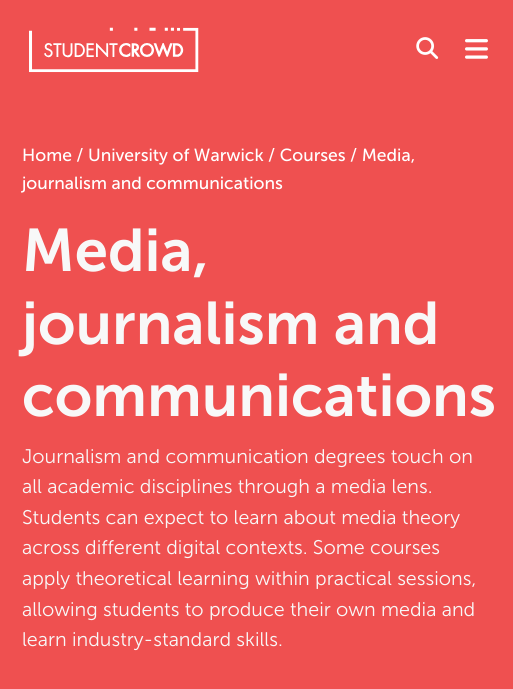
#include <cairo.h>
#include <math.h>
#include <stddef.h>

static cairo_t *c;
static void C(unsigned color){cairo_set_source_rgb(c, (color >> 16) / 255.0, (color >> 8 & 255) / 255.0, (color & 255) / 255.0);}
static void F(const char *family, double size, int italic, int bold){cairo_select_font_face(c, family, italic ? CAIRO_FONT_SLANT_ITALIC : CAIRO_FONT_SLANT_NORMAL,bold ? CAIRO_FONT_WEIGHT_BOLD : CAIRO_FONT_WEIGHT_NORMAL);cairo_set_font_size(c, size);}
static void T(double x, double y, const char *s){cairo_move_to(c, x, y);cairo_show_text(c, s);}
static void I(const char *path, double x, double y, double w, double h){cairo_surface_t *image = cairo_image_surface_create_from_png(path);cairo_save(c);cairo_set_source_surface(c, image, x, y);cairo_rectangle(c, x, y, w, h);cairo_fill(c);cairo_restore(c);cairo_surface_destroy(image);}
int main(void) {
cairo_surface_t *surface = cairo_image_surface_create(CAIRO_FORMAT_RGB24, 513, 689);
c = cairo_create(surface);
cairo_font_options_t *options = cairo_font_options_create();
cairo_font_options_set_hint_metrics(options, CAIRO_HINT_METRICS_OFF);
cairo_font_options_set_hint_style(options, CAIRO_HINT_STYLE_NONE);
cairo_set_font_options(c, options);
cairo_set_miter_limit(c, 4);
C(0xef5050);
cairo_paint(c);
I("1.png",29,27,170,46);
I("2.png",416,37,23,22);
I("3.png",465,39,23,20);
F("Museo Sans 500",17.5,0,0);
C(0xffffff);
T(22,161,"Home / University of Warwick / Courses / Media,");
T(22,189,"journalism and communications");
F("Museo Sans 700 SemiBold",60,0,0);
C(0xf8f8f8);
T(22,271,"Media,");
T(22,344,"journalism and");
T(22,416,"communications");
F("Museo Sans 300 Light",19.7,0,0);
T(22,463,"Journalism and communication degrees touch on");
T(22,493,"all academic disciplines through a media lens.");
T(22,524,"Students can expect to learn about media theory");
T(22,554,"across different digital contexts. Some courses");
T(22,585,"apply theoretical learning within practical sessions,");
T(22,616,"allowing students to produce their own media and");
T(22,646,"learn industry-standard skills.");
cairo_surface_write_to_png(surface, "o.png");
cairo_font_options_destroy(options);
cairo_destroy(c);
cairo_surface_destroy(surface);
return 0;
}
